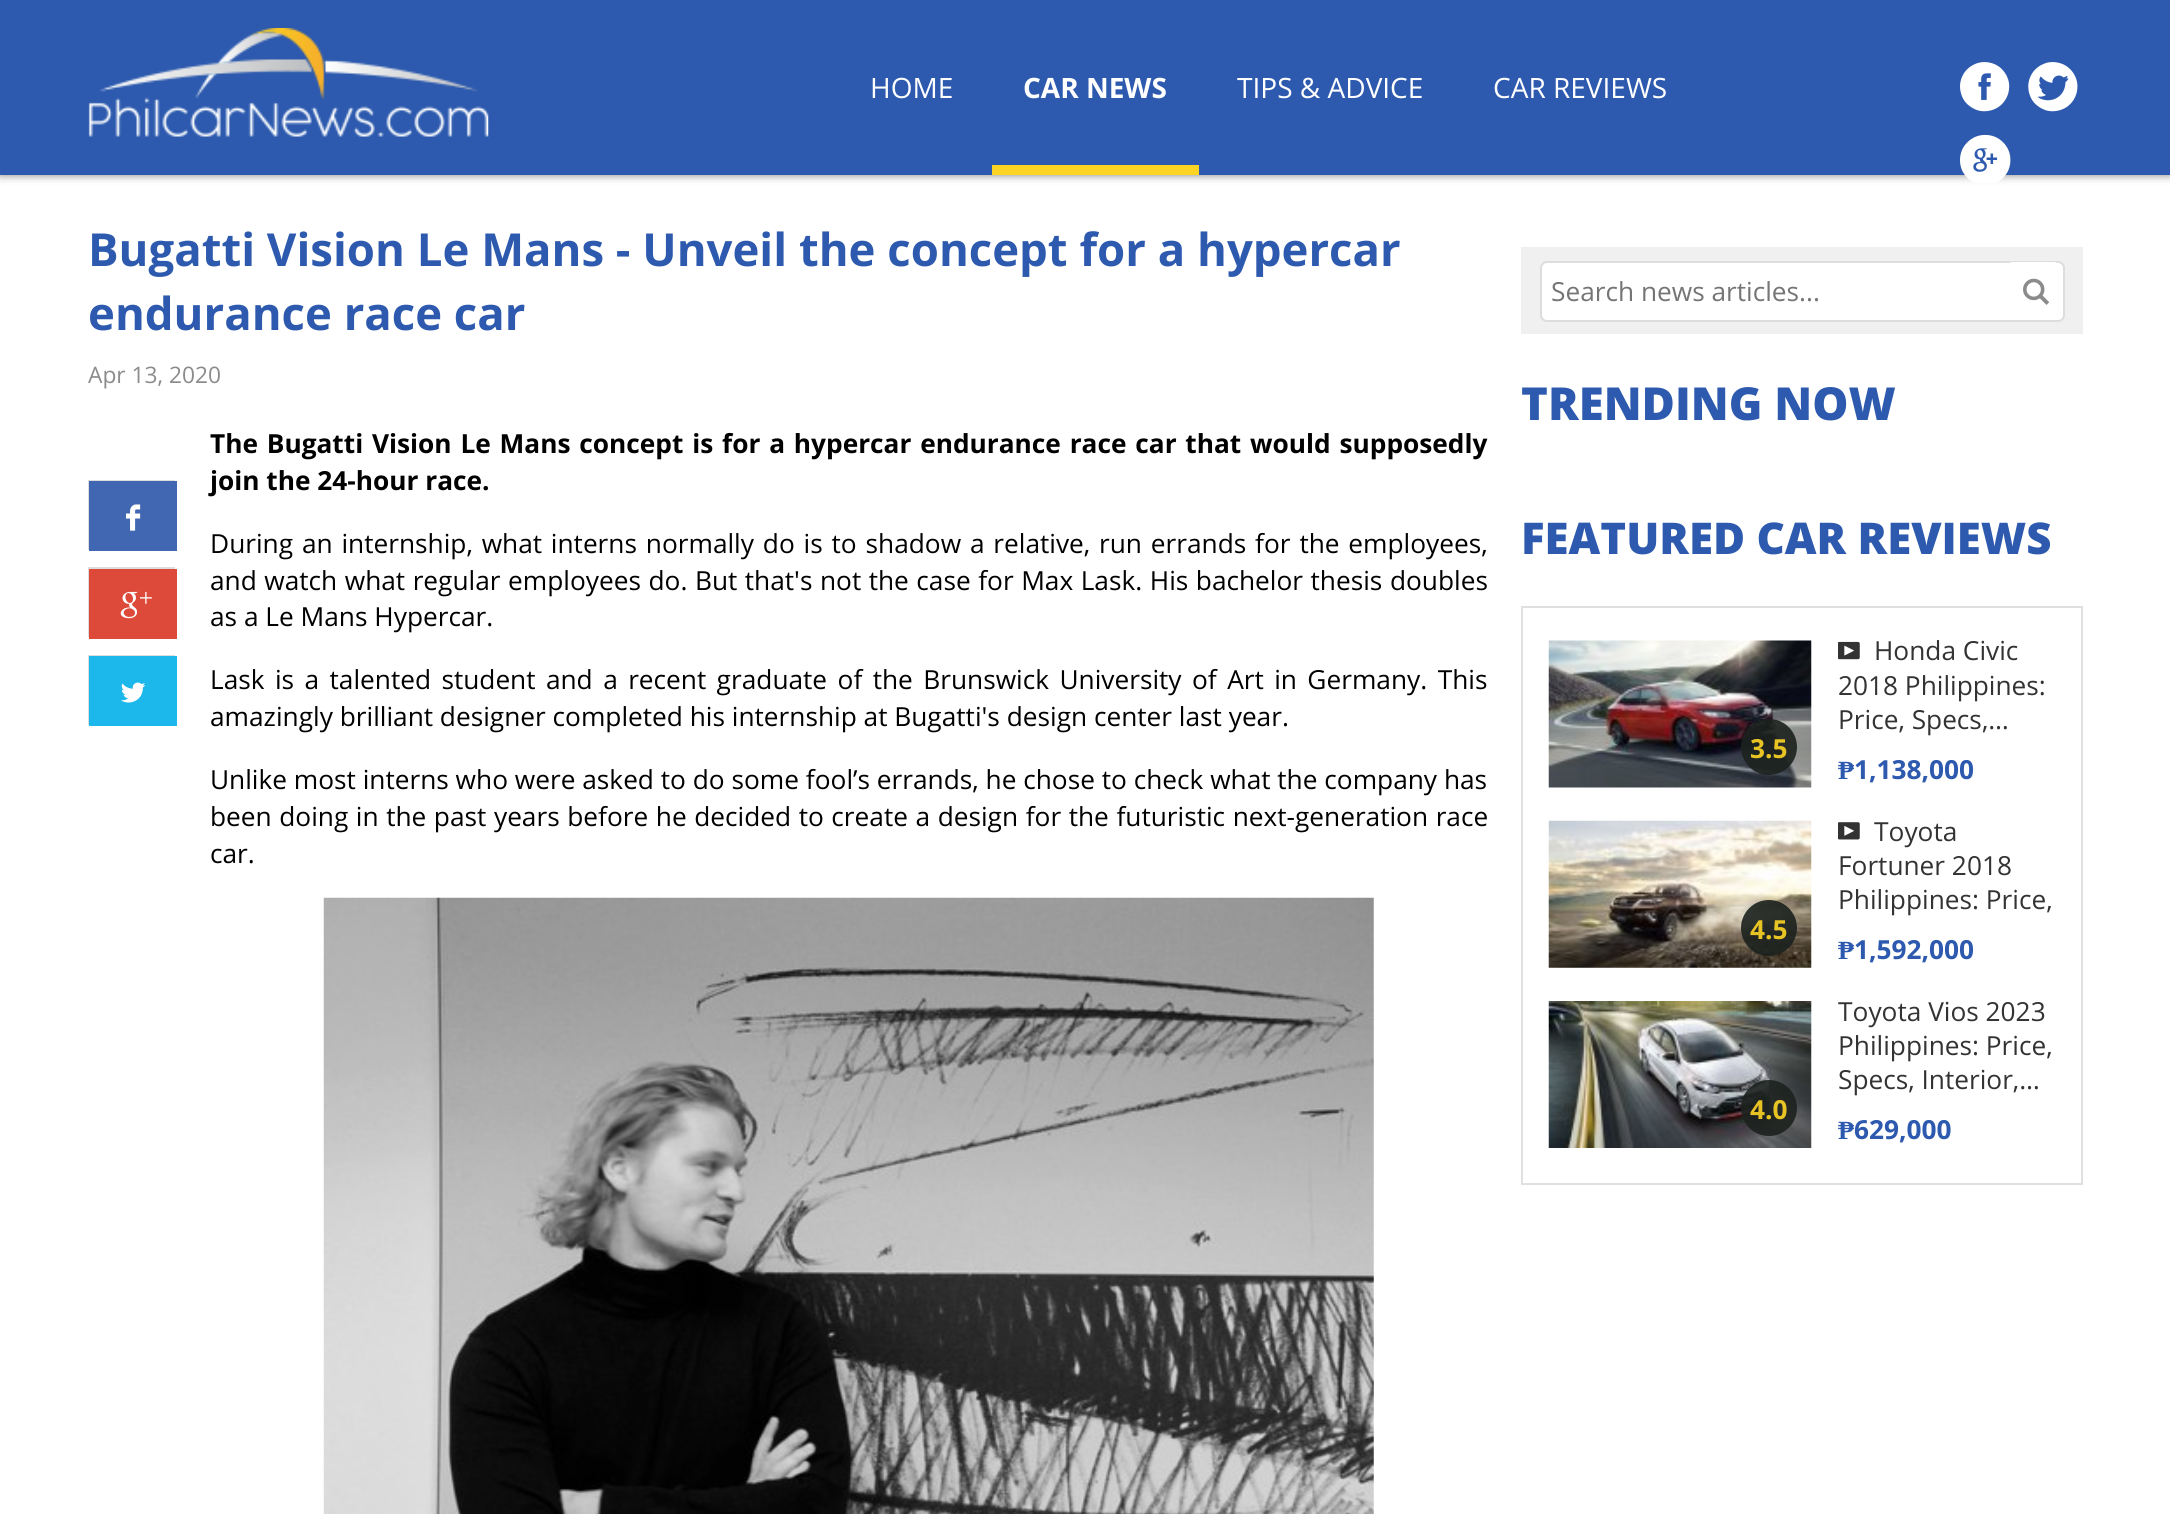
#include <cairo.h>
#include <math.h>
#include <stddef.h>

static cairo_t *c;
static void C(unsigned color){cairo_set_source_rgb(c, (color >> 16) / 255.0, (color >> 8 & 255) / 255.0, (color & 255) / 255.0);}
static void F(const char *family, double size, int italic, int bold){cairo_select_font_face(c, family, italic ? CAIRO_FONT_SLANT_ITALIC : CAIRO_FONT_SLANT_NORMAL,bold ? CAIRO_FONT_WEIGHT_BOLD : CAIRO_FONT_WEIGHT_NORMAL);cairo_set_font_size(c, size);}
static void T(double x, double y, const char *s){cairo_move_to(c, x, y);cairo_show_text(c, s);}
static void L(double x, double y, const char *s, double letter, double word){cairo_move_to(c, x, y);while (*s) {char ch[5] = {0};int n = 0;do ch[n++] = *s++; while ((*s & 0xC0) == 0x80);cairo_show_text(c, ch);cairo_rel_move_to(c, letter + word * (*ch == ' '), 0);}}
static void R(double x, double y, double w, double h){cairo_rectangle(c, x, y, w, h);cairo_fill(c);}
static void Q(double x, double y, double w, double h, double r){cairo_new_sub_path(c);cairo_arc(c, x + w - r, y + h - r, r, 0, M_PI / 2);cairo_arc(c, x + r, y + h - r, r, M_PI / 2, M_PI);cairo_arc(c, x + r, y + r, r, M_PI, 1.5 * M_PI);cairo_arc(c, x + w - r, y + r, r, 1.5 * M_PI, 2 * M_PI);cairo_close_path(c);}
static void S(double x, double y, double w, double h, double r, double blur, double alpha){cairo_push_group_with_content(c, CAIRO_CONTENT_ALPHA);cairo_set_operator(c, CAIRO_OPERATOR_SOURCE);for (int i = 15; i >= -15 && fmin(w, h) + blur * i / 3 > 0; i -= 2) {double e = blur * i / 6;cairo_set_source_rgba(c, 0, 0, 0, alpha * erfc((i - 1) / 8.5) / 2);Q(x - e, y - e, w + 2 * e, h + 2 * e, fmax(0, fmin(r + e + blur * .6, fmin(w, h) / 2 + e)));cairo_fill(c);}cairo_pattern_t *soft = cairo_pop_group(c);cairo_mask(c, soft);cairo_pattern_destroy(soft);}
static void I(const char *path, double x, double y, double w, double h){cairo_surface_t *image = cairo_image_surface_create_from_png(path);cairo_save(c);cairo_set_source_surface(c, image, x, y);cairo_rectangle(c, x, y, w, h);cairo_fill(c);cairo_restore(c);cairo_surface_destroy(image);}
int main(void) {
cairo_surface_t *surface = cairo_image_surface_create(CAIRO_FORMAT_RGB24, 2170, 1514);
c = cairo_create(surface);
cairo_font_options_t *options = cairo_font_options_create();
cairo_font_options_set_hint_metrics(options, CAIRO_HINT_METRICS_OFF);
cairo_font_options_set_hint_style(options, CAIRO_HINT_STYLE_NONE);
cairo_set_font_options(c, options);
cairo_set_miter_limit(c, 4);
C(0xffffff);
cairo_paint(c);
C(0x808080);
S(0,0,2170,175,0,4.5,1);
C(0x2d5aae);
R(0,0,2170,175);
I("1.png",88,28,401,109);
F("Open Sans",28,0,0);
C(0xffffff);
T(870,98,"HOME");
C(0xfed424);
R(992,165,207,10);
F("Open Sans",28,0,1);
C(0xffffff);
T(1023,98,"CAR NEWS");
F("Open Sans",28,0,0);
T(1237,98,"TIPS & ADVICE");
T(1493,98,"CAR REVIEWS");
I("2.png",1960,62,50,50);
I("3.png",2028,62,50,50);
I("4.png",1960,134,51,49);
F("Open Sans",45.5,0,1);
C(0x2d5aae);
T(88,266,"Bugatti Vision Le Mans - Unveil the concept for a hypercar");
T(88,330,"endurance race car");
F("Open Sans",22.75,0,0);
C(0x8b8b8b);
T(88,383,"Apr 13, 2020");
cairo_rectangle(c,89,481,85,68);
C(0xdddddd);
cairo_stroke(c);
C(0x4267b2);
R(89,481,88,70);
I("5.png",126,504,15,27);
cairo_rectangle(c,89,568,85,68);
C(0xdddddd);
cairo_stroke(c);
C(0xdd4a39);
R(89,569,88,70);
I("6.png",120,591,32,28);
cairo_rectangle(c,89,656,85,68);
C(0xdddddd);
cairo_stroke(c);
C(0x1cb7eb);
R(89,656,88,70);
I("7.png",121,682,25,21);
F("Open Sans",26.25,0,1);
C(0x000000);
L(210,453,"The Bugatti Vision Le Mans concept is for a hypercar endurance race car that would supposedly",0,2);
T(210,490,"join the 24-hour race.");
F("Open Sans",26.25,0,0);
L(210,553,"During an internship, what interns normally do is to shadow a relative, run errands for the employees,",0,2);
L(210,590,"and watch what regular employees do. But that's not the case for Max Lask. His bachelor thesis doubles",0,.7);
T(210,626,"as a Le Mans Hypercar.");
L(210,689,"Lask is a talented student and a recent graduate of the Brunswick University of Art in Germany. This",0,3.6);
T(210,726,"amazingly brilliant designer completed his internship at Bugatti's design center last year.");
T(210,789,"Unlike most interns who were asked to do some fool’s errands, he chose to check what the company has");
L(210,826,"been doing in the past years before he decided to create a design for the futuristic next-generation race",0,.75);
T(210,863,"car.");
I("8.png",323,897,1051,617);
C(0xf0f0f0);
R(1521,247,562,87);
C(0xffffff);
Q(1541,262,523,59,6);
cairo_fill_preserve(c);
C(0xdddddd);
cairo_stroke(c);
I("9.png",2023,278,27,27);
C(0xffffff);
cairo_set_fill_rule(c,CAIRO_FILL_RULE_EVEN_ODD);
cairo_new_path(c);
cairo_move_to(c,2012,262);
cairo_line_to(c,2054,262);
cairo_curve_to(c,2058,262,2062,266,2062,270);
cairo_line_to(c,2062,312);
cairo_curve_to(c,2062,315,2058,318,2054,318);
cairo_line_to(c,2012,318);
cairo_curve_to(c,2009,318,2006,315,2006,312);
cairo_line_to(c,2006,270);
cairo_curve_to(c,2006,266,2009,262,2012,262);
cairo_close_path(c);
cairo_move_to(c,2012,264);
cairo_line_to(c,2054,264);
cairo_curve_to(c,2057,264,2060,267,2060,270);
cairo_line_to(c,2060,312);
cairo_curve_to(c,2060,314,2057,317,2054,317);
cairo_line_to(c,2012,317);
cairo_curve_to(c,2009,317,2006,314,2006,312);
cairo_line_to(c,2006,270);
cairo_curve_to(c,2006,267,2009,264,2012,264);
cairo_close_path(c);
cairo_fill(c);
C(0x757575);
T(1551,301,"Search news articles...");
F("Open Sans ExtraBold",45.5,0,0);
C(0x2d5aae);
T(1521,420,"TRENDING NOW");
F("Open Sans ExtraBold",43.75,0,0);
T(1521,554,"FEATURED CAR REVIEWS");
cairo_rectangle(c,1522,607,560,577);
C(0xe0e0e0);
cairo_stroke(c);
I("10.png",1838,641,22,19);
F("Open Sans",26.25,0,0);
C(0x333333);
T(1874,660,"Honda Civic");
T(1838,695,"2018 Philippines:");
T(1838,729,"Price, Specs,…");
I("11.png",1548,640,264,148);
cairo_set_source_rgba(c,0.11,0.133,0.118,0.9);
cairo_arc(c,1769,747,28,0,2 * M_PI);
cairo_fill(c);
F("Open Sans",26.25,0,1);
C(0xe8c324);
T(1750,758,"3.5");
F("Liberation Serif",26.25,0,1);
C(0x2d5aae);
T(1838,779,"₱");
F("Open Sans",26.25,0,1);
T(1854,779,"1,138,000");
I("12.png",1838,822,22,18);
F("Open Sans",26.25,0,0);
C(0x333333);
T(1874,841,"Toyota");
T(1838,875,"Fortuner 2018");
T(1838,909,"Philippines: Price,");
I("13.png",1548,820,264,148);
cairo_set_source_rgba(c,0.11,0.133,0.118,0.9);
cairo_arc(c,1769,928,28,0,2 * M_PI);
cairo_fill(c);
F("Open Sans",26.25,0,1);
C(0xe8c324);
T(1750,939,"4.5");
F("Liberation Serif",26.25,0,1);
C(0x2d5aae);
T(1838,959,"₱");
F("Open Sans",26.25,0,1);
T(1854,959,"1,592,000");
F("Open Sans",26.25,0,0);
C(0x333333);
T(1838,1021,"Toyota Vios 2023");
T(1838,1055,"Philippines: Price,");
T(1838,1089,"Specs, Interior,…");
I("14.png",1548,1001,264,147);
cairo_set_source_rgba(c,0.11,0.133,0.118,0.9);
cairo_arc(c,1769,1108,28,0,2 * M_PI);
cairo_fill(c);
F("Open Sans",26.25,0,1);
C(0xe8c324);
T(1750,1119,"4.0");
F("Liberation Serif",26.25,0,1);
C(0x2d5aae);
T(1838,1139,"₱");
F("Open Sans",26.25,0,1);
T(1854,1139,"629,000");
cairo_surface_write_to_png(surface, "o.png");
cairo_font_options_destroy(options);
cairo_destroy(c);
cairo_surface_destroy(surface);
return 0;
}
